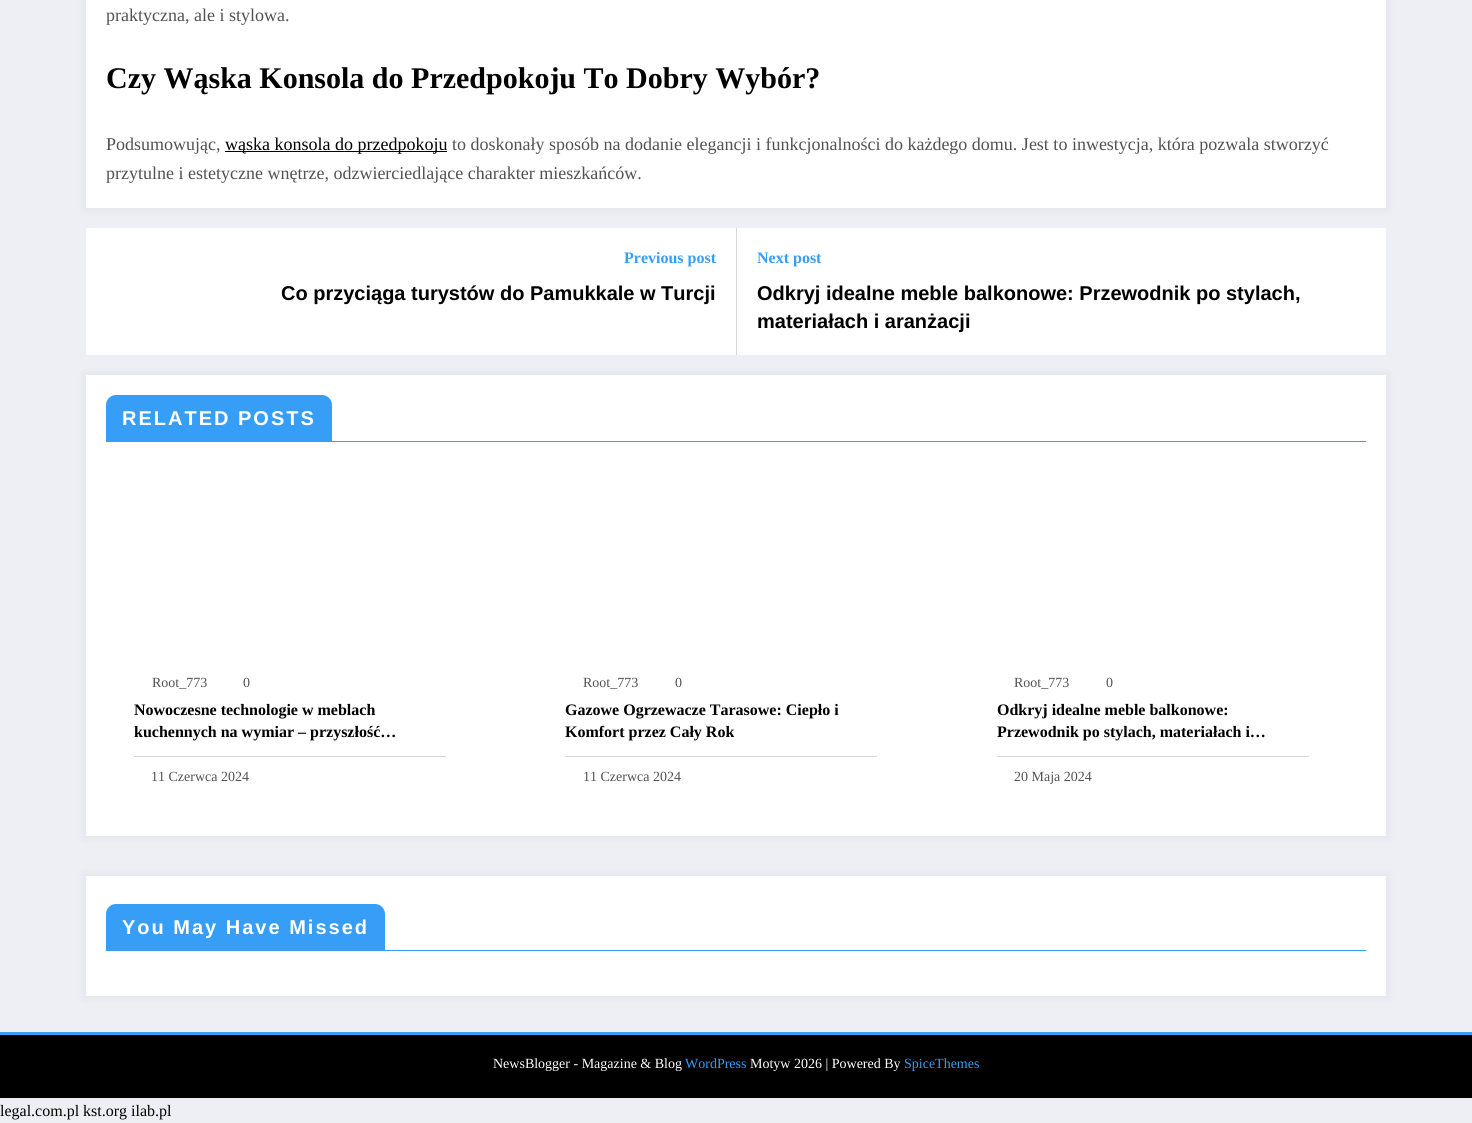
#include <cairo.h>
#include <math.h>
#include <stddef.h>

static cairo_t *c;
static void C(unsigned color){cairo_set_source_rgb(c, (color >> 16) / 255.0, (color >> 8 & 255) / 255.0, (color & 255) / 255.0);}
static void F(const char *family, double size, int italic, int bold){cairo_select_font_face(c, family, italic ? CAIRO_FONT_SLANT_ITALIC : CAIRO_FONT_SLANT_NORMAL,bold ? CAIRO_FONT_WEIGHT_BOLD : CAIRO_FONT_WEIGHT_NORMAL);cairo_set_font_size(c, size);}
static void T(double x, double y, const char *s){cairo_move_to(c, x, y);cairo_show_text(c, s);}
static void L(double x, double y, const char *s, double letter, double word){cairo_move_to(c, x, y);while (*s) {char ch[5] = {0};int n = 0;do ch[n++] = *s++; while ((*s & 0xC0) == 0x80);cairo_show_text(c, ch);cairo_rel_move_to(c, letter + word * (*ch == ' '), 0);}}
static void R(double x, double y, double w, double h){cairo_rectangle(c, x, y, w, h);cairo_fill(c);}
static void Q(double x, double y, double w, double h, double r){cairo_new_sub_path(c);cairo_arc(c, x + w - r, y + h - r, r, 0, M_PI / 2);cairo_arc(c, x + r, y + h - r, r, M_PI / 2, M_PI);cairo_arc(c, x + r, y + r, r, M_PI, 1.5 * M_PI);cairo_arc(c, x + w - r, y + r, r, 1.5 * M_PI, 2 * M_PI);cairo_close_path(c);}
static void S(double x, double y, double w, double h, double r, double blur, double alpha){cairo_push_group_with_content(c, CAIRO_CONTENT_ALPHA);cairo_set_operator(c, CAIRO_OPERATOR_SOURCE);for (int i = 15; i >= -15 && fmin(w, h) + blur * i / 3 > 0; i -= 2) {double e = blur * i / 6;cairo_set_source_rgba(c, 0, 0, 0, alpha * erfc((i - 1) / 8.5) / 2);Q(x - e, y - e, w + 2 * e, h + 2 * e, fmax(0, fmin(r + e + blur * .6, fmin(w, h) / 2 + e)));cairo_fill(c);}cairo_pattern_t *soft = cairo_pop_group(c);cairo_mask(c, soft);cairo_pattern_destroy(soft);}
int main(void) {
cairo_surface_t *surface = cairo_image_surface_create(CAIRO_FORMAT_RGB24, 1472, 1123);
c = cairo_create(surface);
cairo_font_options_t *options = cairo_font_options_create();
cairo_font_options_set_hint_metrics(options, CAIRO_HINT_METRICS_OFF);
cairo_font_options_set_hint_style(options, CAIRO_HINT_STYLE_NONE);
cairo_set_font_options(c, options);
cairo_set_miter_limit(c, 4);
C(0xeeeef5);
cairo_paint(c);
C(0x171723);
S(84,-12,1304,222,0,4,.05);
C(0xffffff);
R(86,0,1300,208);
F("Liberation Serif",18,0,0);
C(0x525252);
T(106,21,"praktyczna, ale i stylowa.");
F("Liberation Serif",30,0,1);
C(0x000000);
T(106,88,"Czy Wąska Konsola do Przedpokoju To Dobry Wybór?");
F("Liberation Serif",18,0,0);
C(0x525252);
T(106,150,"Podsumowując,");
C(0x000000);
R(225,151,222,1);
T(225,150,"wąska konsola do przedpokoju");
C(0x525252);
T(452,150,"to doskonały sposób na dodanie elegancji i funkcjonalności do każdego domu. Jest to inwestycja, która pozwala stworzyć");
T(106,179,"przytulne i estetyczne wnętrze, odzwierciedlające charakter mieszkańców.");
C(0xffffff);
R(86,228,1300,127);
F("Liberation Serif",16,0,1);
C(0x369ef6);
T(624,263,"Previous post");
F("Liberation Sans",20,0,1);
C(0x000000);
T(281,300,"Co przyciąga turystów do Pamukkale w Turcji");
C(0xd7d7d7);
R(736,228,1,127);
F("Liberation Serif",16,0,1);
C(0x369ef6);
T(757,263,"Next post");
F("Liberation Sans",20,0,1);
C(0x000000);
T(757,300,"Odkryj idealne meble balkonowe: Przewodnik po stylach,");
T(757,328,"materiałach i aranżacji");
C(0x171723);
S(84,373,1304,465,0,4,.05);
C(0xffffff);
R(86,375,1300,461);
C(0x369ef6);
R(106,441,1260,1);
cairo_new_path(c);
cairo_move_to(c,116,395);
cairo_line_to(c,322,395);
cairo_curve_to(c,327.5,395,332,399.5,332,405);
cairo_line_to(c,332,441);
cairo_line_to(c,106,441);
cairo_line_to(c,106,405);
cairo_curve_to(c,106,399.5,110.5,395,116,395);
cairo_close_path(c);
cairo_fill(c);
C(0xffffff);
L(122,425,"RELATED POSTS",2,0);
C(0xd7d7d7);
R(134,756,312,1);
F("Liberation Serif",14,0,0);
C(0x525252);
T(152,687,"Root_773");
T(243,687,"0");
F("Liberation Serif",16,0,1);
C(0x000000);
T(134,715,"Nowoczesne technologie w meblach");
T(134,737,"kuchennych na wymiar – przyszłość…");
F("Liberation Serif",14,0,0);
C(0x525252);
T(151,781,"11 Czerwca 2024");
C(0xd7d7d7);
R(565,756,312,1);
C(0x525252);
T(583,687,"Root_773");
T(675,687,"0");
F("Liberation Serif",16,0,1);
C(0x000000);
T(565,715,"Gazowe Ogrzewacze Tarasowe: Ciepło i");
T(565,737,"Komfort przez Cały Rok");
F("Liberation Serif",14,0,0);
C(0x525252);
T(583,781,"11 Czerwca 2024");
C(0xd7d7d7);
R(997,756,312,1);
C(0x525252);
T(1014,687,"Root_773");
T(1106,687,"0");
F("Liberation Serif",16,0,1);
C(0x000000);
T(997,715,"Odkryj idealne meble balkonowe:");
T(997,737,"Przewodnik po stylach, materiałach i…");
F("Liberation Serif",14,0,0);
C(0x525252);
T(1014,781,"20 Maja 2024");
C(0x171723);
S(84,874,1304,124,0,4,.05);
C(0xffffff);
R(86,876,1300,120);
C(0x369ef6);
R(106,950,1260,1);
cairo_new_path(c);
cairo_move_to(c,116,904);
cairo_line_to(c,375,904);
cairo_curve_to(c,380.5,904,385,908.5,385,914);
cairo_line_to(c,385,950);
cairo_line_to(c,106,950);
cairo_line_to(c,106,914);
cairo_curve_to(c,106,908.5,110.5,904,116,904);
cairo_close_path(c);
cairo_fill(c);
F("Liberation Sans",20,0,1);
C(0xffffff);
L(122,934,"You May Have Missed",2,0);
C(0x369ef6);
R(0,1032,1472,3);
C(0x000000);
R(0,1035,1472,63);
F("Liberation Serif",14,0,0);
C(0xffffff);
T(493,1068,"NewsBlogger - Magazine & Blog");
C(0x369ef6);
T(685,1068,"WordPress");
C(0xffffff);
T(750,1068,"Motyw 2026 | Powered By");
C(0x369ef6);
T(904,1068,"SpiceThemes");
F("Liberation Serif",16,0,0);
C(0x000000);
T(0,1116,"legal.com.pl kst.org ilab.pl");
cairo_surface_write_to_png(surface, "o.png");
cairo_font_options_destroy(options);
cairo_destroy(c);
cairo_surface_destroy(surface);
return 0;
}
